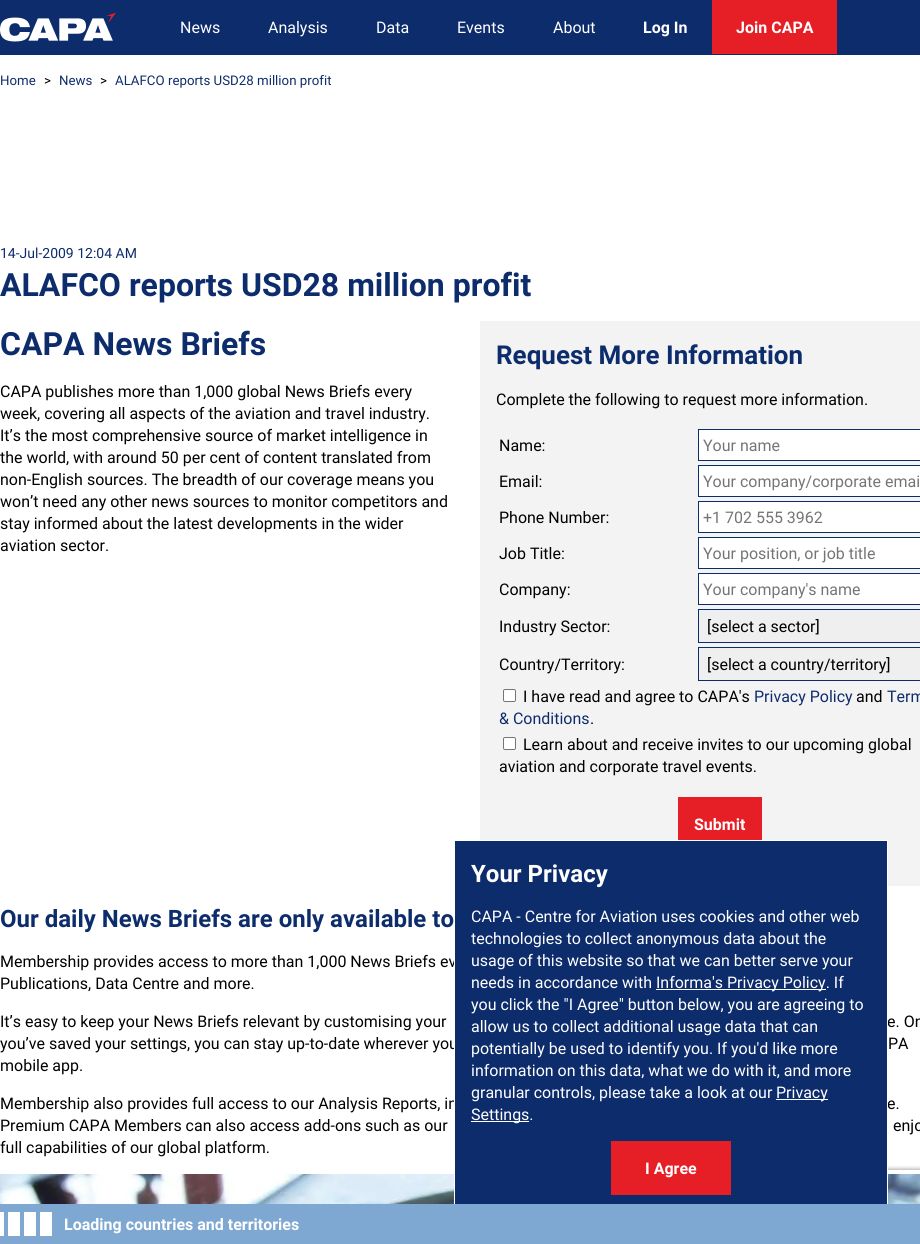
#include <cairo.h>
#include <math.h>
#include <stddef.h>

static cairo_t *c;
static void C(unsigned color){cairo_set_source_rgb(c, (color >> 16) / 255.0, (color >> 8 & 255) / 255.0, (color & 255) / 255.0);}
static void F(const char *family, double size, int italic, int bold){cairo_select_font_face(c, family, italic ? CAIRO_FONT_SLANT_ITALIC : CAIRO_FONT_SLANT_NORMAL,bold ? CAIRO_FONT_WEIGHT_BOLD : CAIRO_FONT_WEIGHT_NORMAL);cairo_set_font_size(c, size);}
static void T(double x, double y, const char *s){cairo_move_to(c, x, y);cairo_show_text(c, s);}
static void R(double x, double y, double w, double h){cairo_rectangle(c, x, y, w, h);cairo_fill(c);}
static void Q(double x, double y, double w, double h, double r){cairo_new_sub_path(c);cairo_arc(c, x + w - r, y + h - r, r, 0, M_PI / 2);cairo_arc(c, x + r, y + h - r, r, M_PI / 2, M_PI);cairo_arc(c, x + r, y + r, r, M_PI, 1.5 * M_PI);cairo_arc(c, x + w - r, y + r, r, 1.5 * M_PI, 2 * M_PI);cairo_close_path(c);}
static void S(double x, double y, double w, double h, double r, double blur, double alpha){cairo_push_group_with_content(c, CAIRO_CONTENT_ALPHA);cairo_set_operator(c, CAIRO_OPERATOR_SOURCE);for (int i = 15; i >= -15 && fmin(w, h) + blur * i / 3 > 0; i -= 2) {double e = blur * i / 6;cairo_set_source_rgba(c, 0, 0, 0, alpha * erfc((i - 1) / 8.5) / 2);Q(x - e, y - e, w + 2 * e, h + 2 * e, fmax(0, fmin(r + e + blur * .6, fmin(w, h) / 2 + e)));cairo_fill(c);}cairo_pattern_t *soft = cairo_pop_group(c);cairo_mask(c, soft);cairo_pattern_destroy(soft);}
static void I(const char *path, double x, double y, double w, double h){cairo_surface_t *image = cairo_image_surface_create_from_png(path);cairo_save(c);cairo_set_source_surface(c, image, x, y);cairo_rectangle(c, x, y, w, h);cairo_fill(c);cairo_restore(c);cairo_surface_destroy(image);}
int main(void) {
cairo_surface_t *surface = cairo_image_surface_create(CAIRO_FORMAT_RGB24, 920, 1244);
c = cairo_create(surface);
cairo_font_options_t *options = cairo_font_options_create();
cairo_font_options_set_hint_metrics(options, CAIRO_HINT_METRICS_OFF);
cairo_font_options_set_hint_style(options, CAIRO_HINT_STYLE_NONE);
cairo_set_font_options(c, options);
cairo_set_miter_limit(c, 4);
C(0xffffff);
cairo_paint(c);
C(0x0d2c6c);
R(0,0,920,55);
I("1.png",0,12,116,30);
F("Roboto",16,0,0);
C(0xffffff);
T(180,33,"News");
T(268,33,"Analysis");
T(376,33,"Data");
T(457,33,"Events");
T(553,33,"About");
F("Roboto",16,0,1);
T(643,33,"Log In");
C(0xe61e26);
R(712,0,125,54);
C(0xffffff);
T(736,33,"Join CAPA");
F("Roboto",13.3,0,0);
C(0x0d2c6c);
T(0,85,"Home");
C(0x000000);
T(44,85,">");
C(0x0d2c6c);
T(59,85,"News");
C(0x000000);
T(100,85,">");
C(0x0d2c6c);
T(115,85,"ALAFCO reports USD28 million profit");
F("Roboto",14,0,0);
T(0,258,"14-Jul-2009 12:04 AM");
F("Roboto",32,0,1);
T(0,296,"ALAFCO reports USD28 million profit");
T(0,355,"CAPA News Briefs");
F("Roboto",16,0,0);
C(0x000000);
T(0,397,"CAPA publishes more than 1,000 global News Briefs every");
T(0,419,"week, covering all aspects of the aviation and travel industry.");
T(0,441,"It’s the most comprehensive source of market intelligence in");
T(0,463,"the world, with around 50 per cent of content translated from");
T(0,485,"non-English sources. The breadth of our coverage means you");
T(0,507,"won’t need any other news sources to monitor competitors and");
T(0,529,"stay informed about the latest developments in the wider");
T(0,551,"aviation sector.");
C(0xf3f3f3);
R(480,321,440,565);
F("Roboto",26,0,1);
C(0x0d2c6c);
T(496,364,"Request More Information");
F("Roboto",16,0,0);
C(0x000000);
T(496,405,"Complete the following to request more information.");
T(499,451,"Name:");
C(0xffffff);
cairo_rectangle(c,698.5,429.5,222,31);
cairo_fill_preserve(c);
C(0x0d2c6c);
cairo_set_line_width(c,1);
cairo_stroke(c);
C(0x757575);
T(703,451,"Your name");
C(0x000000);
T(499,487,"Email:");
C(0xffffff);
cairo_rectangle(c,698.5,465.5,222,31);
cairo_fill_preserve(c);
C(0x0d2c6c);
cairo_stroke(c);
C(0x757575);
T(703,487,"Your company/corporate emai");
C(0x000000);
T(499,523,"Phone Number:");
C(0xffffff);
cairo_rectangle(c,698.5,501.5,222,31);
cairo_fill_preserve(c);
C(0x0d2c6c);
cairo_stroke(c);
C(0x757575);
T(703,523,"+1 702 555 3962");
C(0x000000);
T(499,559,"Job Title:");
C(0xffffff);
cairo_rectangle(c,698.5,537.5,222,31);
cairo_fill_preserve(c);
C(0x0d2c6c);
cairo_stroke(c);
C(0x757575);
T(703,559,"Your position, or job title");
C(0x000000);
T(499,595,"Company:");
C(0xffffff);
cairo_rectangle(c,698.5,573.5,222,31);
cairo_fill_preserve(c);
C(0x0d2c6c);
cairo_stroke(c);
C(0x757575);
T(703,595,"Your company's name");
C(0x000000);
T(499,632,"Industry Sector:");
C(0xefefef);
cairo_rectangle(c,698.5,609.5,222,33);
cairo_fill_preserve(c);
C(0x0d2c6c);
cairo_stroke(c);
C(0x000000);
T(707,632,"[select a sector]");
T(499,670,"Country/Territory:");
C(0xefefef);
cairo_rectangle(c,698.5,647.5,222,33);
cairo_fill_preserve(c);
C(0x0d2c6c);
cairo_stroke(c);
C(0x000000);
T(707,670,"[select a country/territory]");
C(0xffffff);
Q(503.5,689.5,12,12,1.5);
cairo_fill_preserve(c);
C(0x767676);
cairo_stroke(c);
C(0x000000);
T(523,702,"I have read and agree to CAPA's");
C(0x0d2c6c);
T(754,702,"Privacy Policy");
C(0x000000);
T(856,702,"and");
C(0x0d2c6c);
T(887,702,"Term");
T(499,724,"& Conditions");
C(0x000000);
T(590,724,".");
C(0xffffff);
Q(503.5,737.5,12,12,1.5);
cairo_fill_preserve(c);
C(0x767676);
cairo_stroke(c);
C(0x000000);
T(523,750,"Learn about and receive invites to our upcoming global");
T(499,772,"aviation and corporate travel events.");
C(0xe61e26);
R(678,797,84,43);
F("Roboto",16,0,1);
C(0xffffff);
T(694,830,"Submit");
I("2.png",0,1174,920,30);
cairo_save(c);
cairo_rectangle(c,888,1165,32,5);
cairo_clip(c);
C(0x808080);
S(850,1170,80,60,2,2.5,1);
cairo_restore(c);
F("Roboto",24,0,1);
C(0x0d2c6c);
T(0,927,"Our daily News Briefs are only available to");
F("Roboto",16,0,0);
C(0x000000);
T(0,967,"Membership provides access to more than 1,000 News Briefs ev");
T(0,989,"Publications, Data Centre and more.");
T(0,1027,"It’s easy to keep your News Briefs relevant by customising your");
T(887,1027,"e. On");
T(0,1049,"you’ve saved your settings, you can stay up-to-date wherever you");
T(888,1049,"PA");
T(0,1071,"mobile app.");
T(0,1109,"Membership also provides full access to our Analysis Reports, in");
T(887,1109,"e.");
T(0,1131,"Premium CAPA Members can also access add-ons such as our");
T(893,1131,"enjo");
T(0,1153,"full capabilities of our global platform.");
C(0x0d2c6c);
R(455,841,432,363);
cairo_rectangle(c,454.5,840.5,433,371);
C(0xffffff);
cairo_stroke(c);
C(0x7ea8d1);
R(0,1204,920,40);
C(0xffffff);
R(0,1212,4,24);
R(8,1212,12,24);
R(24,1212,12,24);
R(40,1212,12,24);
F("Roboto",16,0,1);
T(64,1230,"Loading countries and territories");
F("Roboto",24,0,1);
T(471,882,"Your Privacy");
F("Roboto",16,0,0);
T(471,922,"CAPA - Centre for Aviation uses cookies and other web");
T(471,944,"technologies to collect anonymous data about the");
T(471,966,"usage of this website so that we can better serve your");
T(471,988,"needs in accordance with");
R(656,989,170,1);
T(656,988,"Informa's Privacy Policy. If");
T(471,1010,"you click the \"I Agree\" button below, you are agreeing to");
T(471,1032,"allow us to collect additional usage data that can");
T(471,1054,"potentially be used to identify you. If you'd like more");
T(471,1076,"information on this data, what we do with it, and more");
T(471,1098,"granular controls, please take a look at our");
R(776,1099,52,1);
T(776,1098,"Privacy");
R(471,1121,58,1);
T(471,1120,"Settings.");
C(0xe61e26);
R(611,1141,120,54);
F("Roboto",16,0,1);
C(0xffffff);
T(645,1174,"I Agree");
cairo_surface_write_to_png(surface, "o.png");
cairo_font_options_destroy(options);
cairo_destroy(c);
cairo_surface_destroy(surface);
return 0;
}
